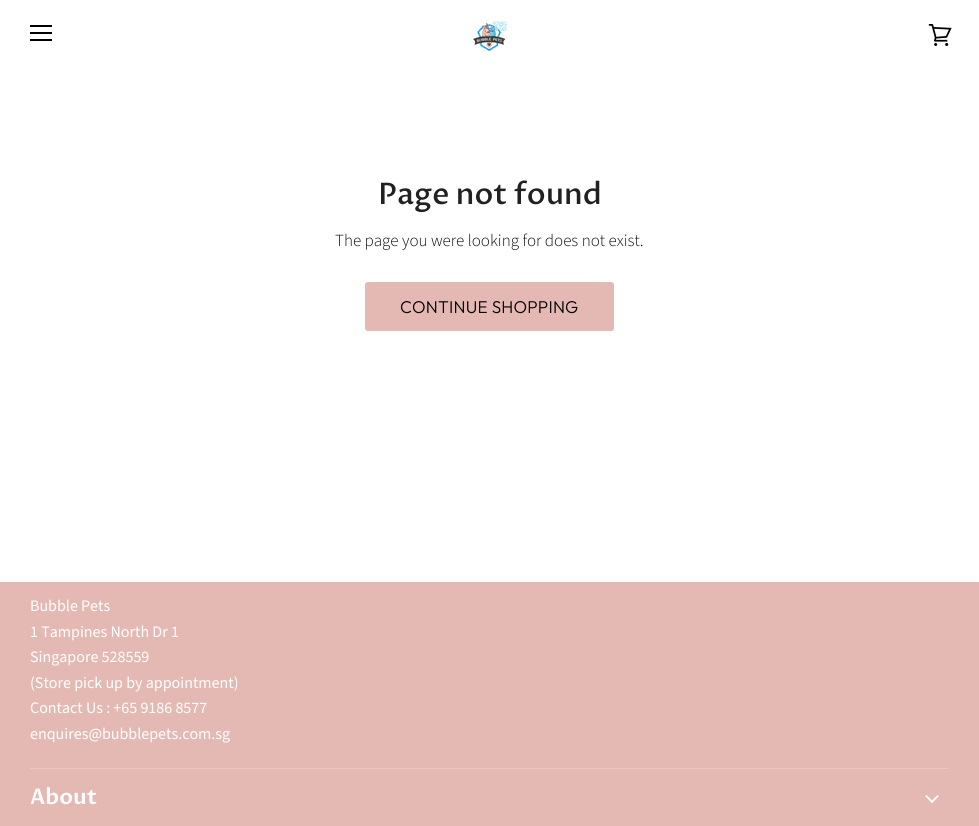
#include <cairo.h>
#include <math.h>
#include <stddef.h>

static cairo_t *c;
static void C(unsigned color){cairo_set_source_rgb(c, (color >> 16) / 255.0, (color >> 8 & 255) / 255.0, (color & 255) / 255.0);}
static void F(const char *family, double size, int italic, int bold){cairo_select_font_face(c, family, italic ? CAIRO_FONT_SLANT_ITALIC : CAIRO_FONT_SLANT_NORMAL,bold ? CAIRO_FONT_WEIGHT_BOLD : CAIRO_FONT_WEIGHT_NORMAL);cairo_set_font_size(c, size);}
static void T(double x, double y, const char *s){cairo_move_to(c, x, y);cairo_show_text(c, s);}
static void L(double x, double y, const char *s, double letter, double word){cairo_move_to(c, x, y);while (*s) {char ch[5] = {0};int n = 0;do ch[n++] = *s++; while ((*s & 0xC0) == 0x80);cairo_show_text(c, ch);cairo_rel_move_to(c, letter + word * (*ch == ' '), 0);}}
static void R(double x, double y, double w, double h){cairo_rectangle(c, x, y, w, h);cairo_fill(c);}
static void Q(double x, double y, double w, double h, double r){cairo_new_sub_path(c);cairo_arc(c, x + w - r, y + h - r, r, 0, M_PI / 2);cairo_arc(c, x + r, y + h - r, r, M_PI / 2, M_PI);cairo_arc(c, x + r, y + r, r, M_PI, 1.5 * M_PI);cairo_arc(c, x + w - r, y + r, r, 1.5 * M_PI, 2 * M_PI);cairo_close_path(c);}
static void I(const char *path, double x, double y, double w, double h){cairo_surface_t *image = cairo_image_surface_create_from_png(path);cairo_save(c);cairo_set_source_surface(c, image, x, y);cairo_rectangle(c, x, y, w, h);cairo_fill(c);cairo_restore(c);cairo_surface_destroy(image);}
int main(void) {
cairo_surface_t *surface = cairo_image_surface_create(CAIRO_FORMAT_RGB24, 979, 826);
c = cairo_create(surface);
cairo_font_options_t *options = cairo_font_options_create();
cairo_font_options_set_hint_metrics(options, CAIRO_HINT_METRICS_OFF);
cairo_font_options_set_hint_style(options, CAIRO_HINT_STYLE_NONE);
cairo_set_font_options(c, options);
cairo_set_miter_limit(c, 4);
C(0xffffff);
cairo_paint(c);
C(0x000000);
R(30,25,22,2);
R(30,32,22,2);
R(30,39,22,2);
I("1.png",473,21,34,30);
I("2.png",928,24,24,22);
F("Proza Libre Medium",29.75,0,0);
C(0x212121);
T(378,204,"Page not found");
F("Source Sans Pro Light",17,0,0);
C(0x111111);
T(335,246,"The page you were looking for does not exist.");
C(0xe5b9b3);
Q(365.5,282.5,248,48,2.5);
cairo_fill_preserve(c);
cairo_set_line_width(c,1);
cairo_stroke(c);
F("Outfit Light",17.1,0,0);
C(0x000000);
L(400,313,"CONTINUE SHOPPING",.2,0);
C(0xe5b9b3);
R(0,582,979,244);
C(0xeac7c2);
R(30,768,919,1);
F("Source Sans Pro",16,0,0);
C(0xffffff);
T(30,611,"Bubble Pets");
T(30,637,"1 Tampines North Dr 1");
T(30,662,"Singapore 528559");
T(30,688,"(Store pick up by appointment)");
T(30,713,"Contact Us : +65 9186 8577");
T(30,739,"enquires@bubblepets.com.sg");
F("Proza Libre SemiBold",21.5,0,0);
T(30,804,"About");
I("3.png",925,795,14,8);
cairo_surface_write_to_png(surface, "o.png");
cairo_font_options_destroy(options);
cairo_destroy(c);
cairo_surface_destroy(surface);
return 0;
}
